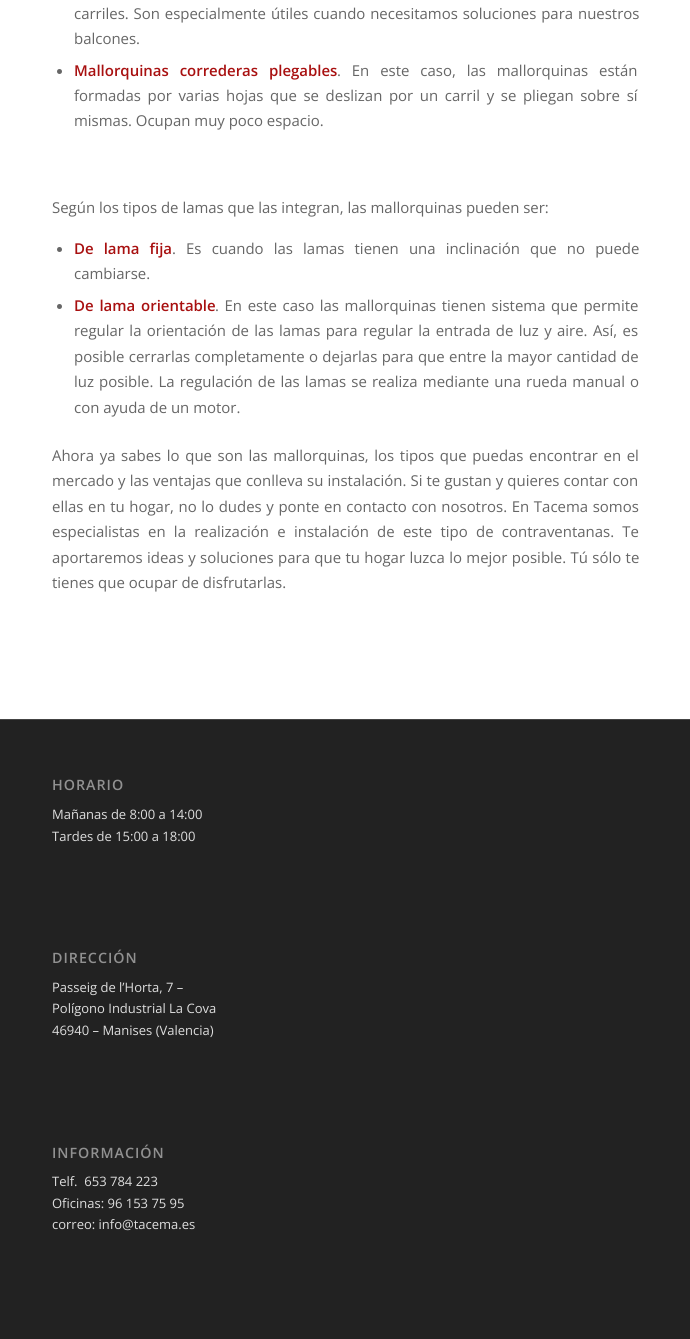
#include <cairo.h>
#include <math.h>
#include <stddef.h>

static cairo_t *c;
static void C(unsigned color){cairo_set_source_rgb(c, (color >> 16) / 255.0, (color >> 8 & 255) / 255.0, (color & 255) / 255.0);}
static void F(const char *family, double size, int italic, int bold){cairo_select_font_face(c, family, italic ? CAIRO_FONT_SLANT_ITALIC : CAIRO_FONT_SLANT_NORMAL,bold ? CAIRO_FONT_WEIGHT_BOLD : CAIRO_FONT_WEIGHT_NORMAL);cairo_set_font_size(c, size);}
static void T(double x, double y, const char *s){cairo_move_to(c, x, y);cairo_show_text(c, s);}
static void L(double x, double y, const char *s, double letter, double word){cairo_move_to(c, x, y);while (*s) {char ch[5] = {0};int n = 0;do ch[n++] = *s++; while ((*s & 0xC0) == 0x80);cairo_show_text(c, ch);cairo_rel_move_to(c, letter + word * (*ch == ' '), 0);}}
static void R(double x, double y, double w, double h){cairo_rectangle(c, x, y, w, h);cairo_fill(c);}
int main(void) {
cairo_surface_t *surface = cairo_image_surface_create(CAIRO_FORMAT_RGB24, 690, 1339);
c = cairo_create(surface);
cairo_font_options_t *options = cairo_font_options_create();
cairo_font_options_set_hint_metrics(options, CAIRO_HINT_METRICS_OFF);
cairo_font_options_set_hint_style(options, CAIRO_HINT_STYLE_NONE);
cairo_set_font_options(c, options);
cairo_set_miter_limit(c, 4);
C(0xffffff);
cairo_paint(c);
F("Open Sans",14.95,0,0);
C(0x666666);
L(74,19,"carriles. Son especialmente útiles cuando necesitamos soluciones para nuestros",0,1);
T(74,44,"balcones.");
cairo_new_path(c);
cairo_arc(c,59.5,71.5,2.5,0,2 * M_PI);
cairo_fill(c);
F("Open Sans SemiBold",14.95,0,0);
C(0xa81010);
L(74,76,"Mallorquinas correderas plegables",0,7);
F("Open Sans",14.95,0,0);
C(0x666666);
L(337,76,". En este caso, las mallorquinas están",0,7);
L(74,101,"formadas por varias hojas que se deslizan por un carril y se pliegan sobre sí",0,2.75);
T(74,126,"mismas. Ocupan muy poco espacio.");
T(52,213,"Según los tipos de lamas que las integran, las mallorquinas pueden ser:");
cairo_new_path(c);
cairo_arc(c,59.5,249.5,2.5,0,2 * M_PI);
cairo_fill(c);
F("Open Sans SemiBold",14.95,0,0);
C(0xa81010);
L(74,254,"De lama fija",0,6.25);
F("Open Sans",14.95,0,0);
C(0x666666);
L(172,254,". Es cuando las lamas tienen una inclinación que no puede",0,6.25);
T(74,279,"cambiarse.");
cairo_new_path(c);
cairo_arc(c,59.5,306.5,2.5,0,2 * M_PI);
cairo_fill(c);
F("Open Sans SemiBold",14.95,0,0);
C(0xa81010);
L(74,311,"De lama orientable",0,2);
F("Open Sans",14.95,0,0);
C(0x666666);
L(215,311,". En este caso las mallorquinas tienen sistema que permite",0,1.75);
L(74,336,"regular la orientación de las lamas para regular la entrada de luz y aire. Así, es",0,1.5);
L(74,362,"posible cerrarlas completamente o dejarlas para que entre la mayor cantidad de",0,.5);
L(74,387,"luz posible. La regulación de las lamas se realiza mediante una rueda manual o",0,1.25);
T(74,413,"con ayuda de un motor.");
L(52,461,"Ahora ya sabes lo que son las mallorquinas, los tipos que puedas encontrar en el",0,1.75);
L(52,486,"mercado y las ventajas que conlleva su instalación. Si te gustan y quieres contar con",0,.25);
L(52,512,"ellas en tu hogar, no lo dudes y ponte en contacto con nosotros. En Tacema somos",0,.75);
L(52,537,"especialistas en la realización e instalación de este tipo de contraventanas. Te",0,4.4);
L(52,563,"aportaremos ideas y soluciones para que tu hogar luzca lo mejor posible. Tú sólo te",0,.5);
T(52,588,"tienes que ocupar de disfrutarlas.");
C(0x222222);
R(0,720,690,619);
C(0x444444);
R(0,719,690,1);
F("Open Sans SemiBold",14.25,0,0);
C(0x919191);
L(52,790,"HORARIO",1,0);
F("Open Sans",13,0,0);
C(0xdddddd);
T(52,819,"Mañanas de 8:00 a 14:00");
T(52,841,"Tardes de 15:00 a 18:00");
F("Open Sans SemiBold",14.25,0,0);
C(0x919191);
L(52,963,"DIRECCIÓN",1,0);
F("Open Sans",13,0,0);
C(0xdddddd);
T(52,992,"Passeig de l’Horta, 7 –");
T(52,1013,"Polígono Industrial La Cova");
T(52,1035,"46940 – Manises (Valencia)");
F("Open Sans SemiBold",14.25,0,0);
C(0x919191);
L(52,1158,"INFORMACIÓN",1,0);
F("Open Sans",13,0,0);
C(0xdddddd);
T(52,1186,"Telf.  653 784 223");
T(52,1208,"Oficinas: 96 153 75 95");
T(52,1229,"correo: info@tacema.es");
cairo_surface_write_to_png(surface, "o.png");
cairo_font_options_destroy(options);
cairo_destroy(c);
cairo_surface_destroy(surface);
return 0;
}
